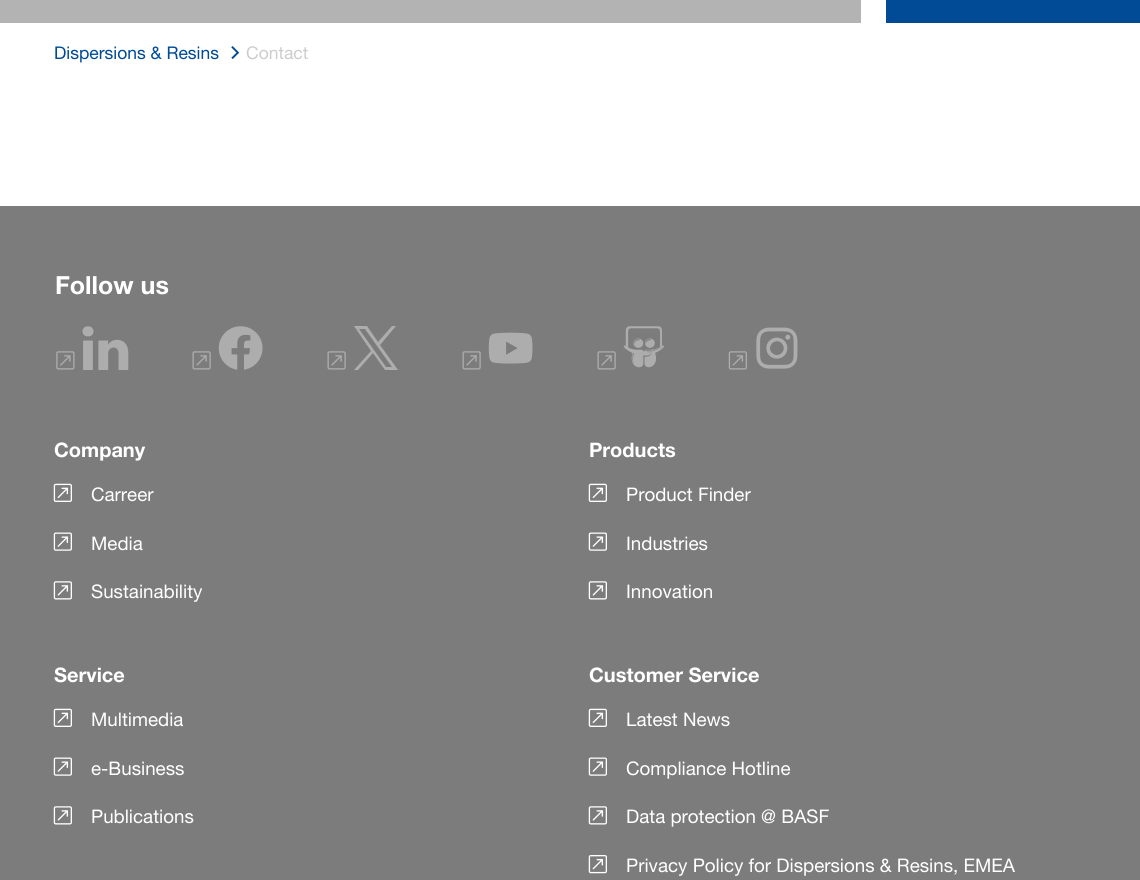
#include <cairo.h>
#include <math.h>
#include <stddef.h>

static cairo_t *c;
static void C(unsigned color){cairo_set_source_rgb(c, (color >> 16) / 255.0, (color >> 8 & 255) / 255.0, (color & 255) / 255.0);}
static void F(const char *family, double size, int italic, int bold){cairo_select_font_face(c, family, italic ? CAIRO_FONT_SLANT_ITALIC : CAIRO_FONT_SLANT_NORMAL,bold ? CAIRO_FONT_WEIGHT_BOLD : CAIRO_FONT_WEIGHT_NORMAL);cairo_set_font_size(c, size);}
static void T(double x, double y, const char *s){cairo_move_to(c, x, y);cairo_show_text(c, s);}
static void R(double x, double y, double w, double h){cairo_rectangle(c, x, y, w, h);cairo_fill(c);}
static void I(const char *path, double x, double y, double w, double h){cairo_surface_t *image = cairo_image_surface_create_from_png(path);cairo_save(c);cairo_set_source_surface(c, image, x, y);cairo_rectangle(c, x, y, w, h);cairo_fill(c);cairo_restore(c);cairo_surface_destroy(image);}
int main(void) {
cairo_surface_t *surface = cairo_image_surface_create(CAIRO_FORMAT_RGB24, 1140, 880);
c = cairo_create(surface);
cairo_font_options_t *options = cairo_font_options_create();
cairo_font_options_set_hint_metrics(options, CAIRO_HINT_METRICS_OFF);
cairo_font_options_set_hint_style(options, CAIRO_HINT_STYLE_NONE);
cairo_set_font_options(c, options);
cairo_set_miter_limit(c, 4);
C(0xffffff);
cairo_paint(c);
C(0xb3b3b3);
R(0,0,861,23);
C(0x004a96);
R(886,0,254,23);
F("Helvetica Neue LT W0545",17.5,0,0);
T(54,59,"Dispersions & Resins");
I("1.png",231,46,9,13);
C(0xcdcdcd);
T(246,59,"Contact");
C(0x7c7c7c);
R(0,206,1140,674);
F("Helvetica Neue LT W0545",25,0,1);
C(0xffffff);
T(55,294,"Follow us");
I("2.png",56,351,19,19);
I("3.png",82,326,47,44);
I("4.png",192,351,19,19);
I("5.png",218,326,45,44);
I("4.png",327,351,19,19);
C(0xadadad);
cairo_new_path(c);
cairo_move_to(c,380,345);
cairo_line_to(c,396,326);
cairo_line_to(c,392,326);
cairo_line_to(c,378,342);
cairo_line_to(c,367,326);
cairo_line_to(c,354,326);
cairo_line_to(c,371,351);
cairo_line_to(c,354,370);
cairo_line_to(c,358,370);
cairo_line_to(c,373,353);
cairo_line_to(c,385,370);
cairo_line_to(c,398,370);
cairo_close_path(c);
cairo_move_to(c,359,329);
cairo_line_to(c,365,329);
cairo_line_to(c,392,367);
cairo_line_to(c,386,367);
cairo_close_path(c);
cairo_fill(c);
I("4.png",462,351,19,19);
I("6.png",488,332,45,32);
I("4.png",597,351,19,19);
I("7.png",623,326,41,42);
I("8.png",728,351,19,19);
I("9.png",756,327,42,42);
F("Helvetica Neue LT W0545",20,0,1);
C(0xffffff);
T(54,457,"Company");
I("10.png",53,483,19,19);
F("Helvetica Neue LT W0545",18.75,0,0);
T(91,501,"Carreer");
I("11.png",53,532,19,19);
T(91,550,"Media");
I("12.png",53,581,19,19);
T(91,598,"Sustainability");
F("Helvetica Neue LT W0545",20,0,1);
T(589,457,"Products");
I("10.png",588,483,19,19);
F("Helvetica Neue LT W0545",18.75,0,0);
T(626,501,"Product Finder");
I("11.png",588,532,19,19);
T(626,550,"Industries");
I("12.png",588,581,19,19);
T(626,598,"Innovation");
F("Helvetica Neue LT W0545",20,0,1);
T(54,682,"Service");
I("10.png",53,708,19,19);
F("Helvetica Neue LT W0545",18.75,0,0);
T(91,726,"Multimedia");
I("11.png",53,757,19,19);
T(91,775,"e-Business");
I("12.png",53,806,19,19);
T(91,823,"Publications");
F("Helvetica Neue LT W0545",20,0,1);
T(589,682,"Customer Service");
I("10.png",588,708,19,19);
F("Helvetica Neue LT W0545",18.75,0,0);
T(626,726,"Latest News");
I("11.png",588,757,19,19);
T(626,775,"Compliance Hotline");
I("12.png",588,806,19,19);
T(626,823,"Data protection @ BASF");
I("13.png",588,855,19,19);
T(626,872,"Privacy Policy for Dispersions & Resins, EMEA");
cairo_surface_write_to_png(surface, "o.png");
cairo_font_options_destroy(options);
cairo_destroy(c);
cairo_surface_destroy(surface);
return 0;
}
